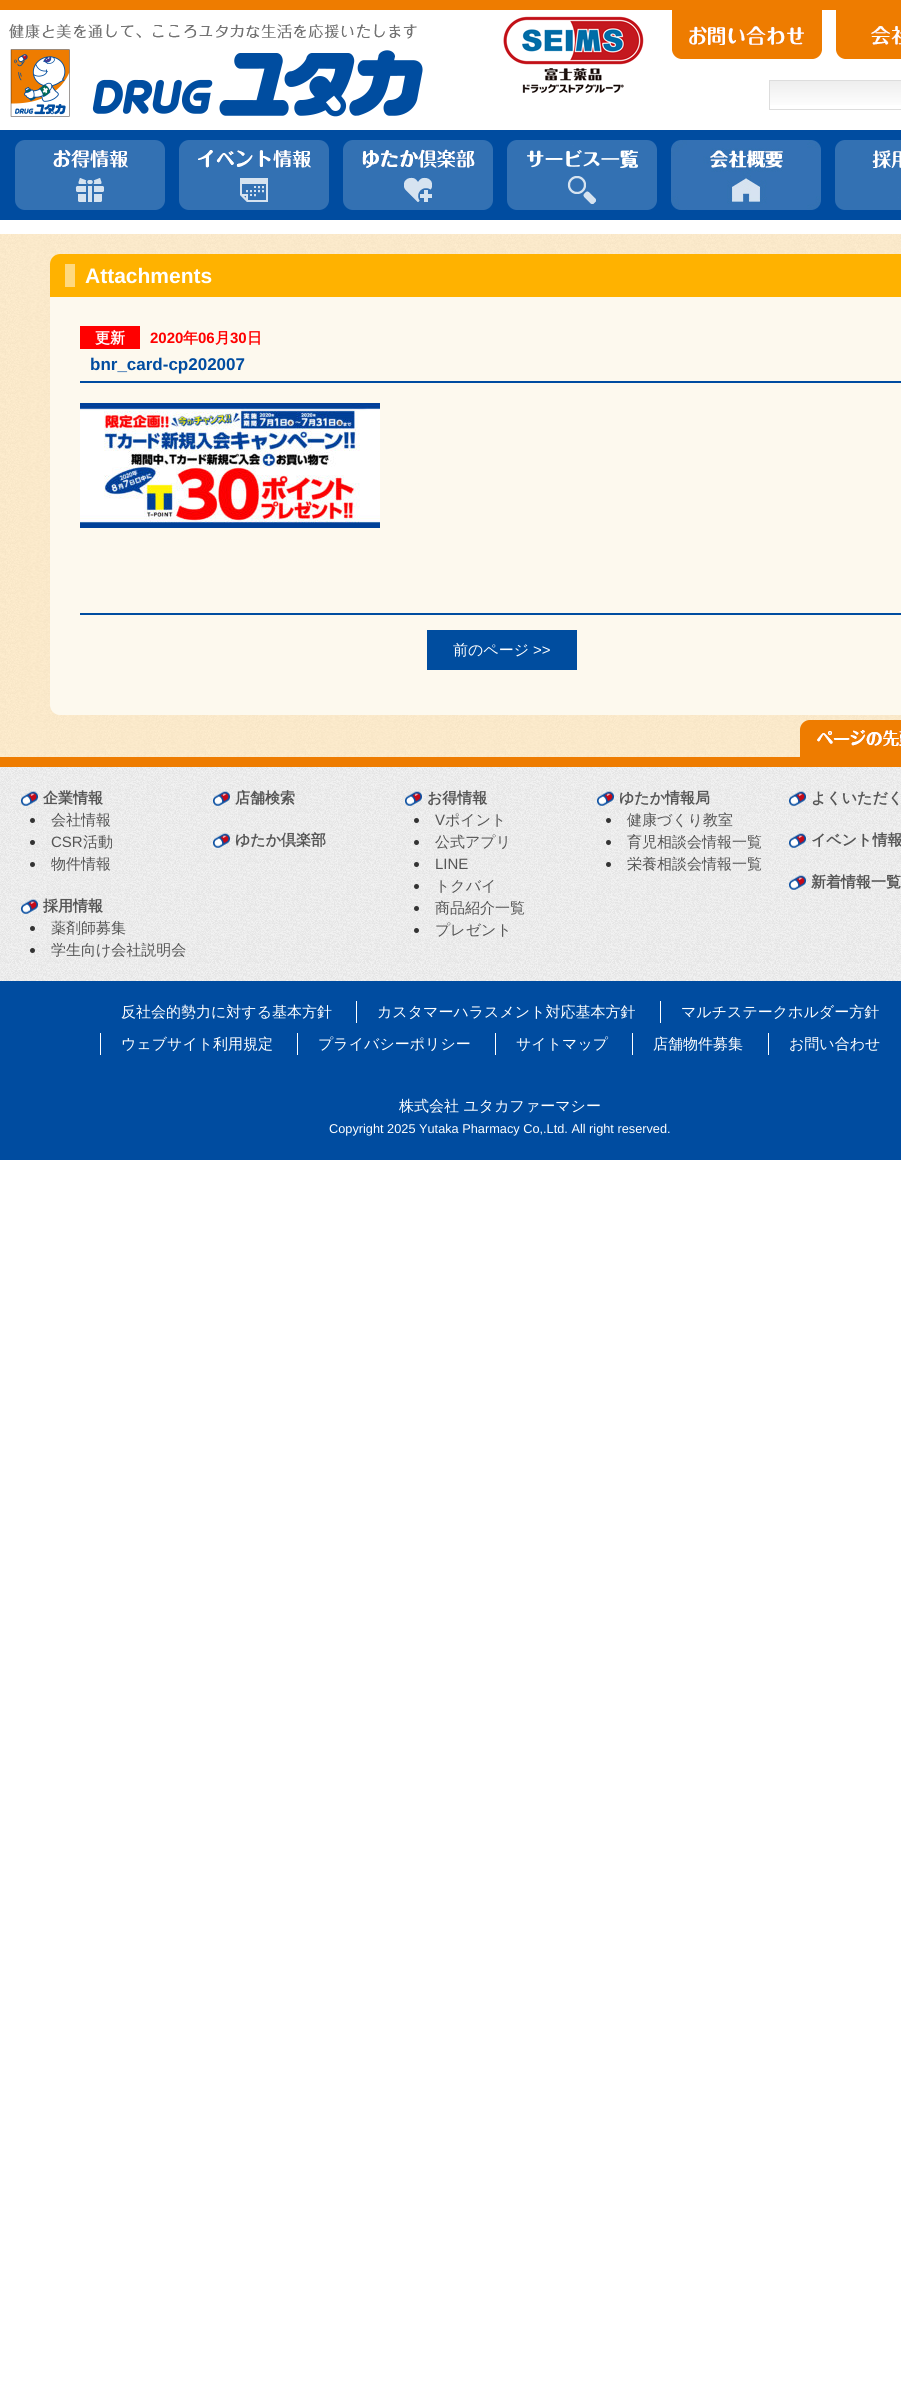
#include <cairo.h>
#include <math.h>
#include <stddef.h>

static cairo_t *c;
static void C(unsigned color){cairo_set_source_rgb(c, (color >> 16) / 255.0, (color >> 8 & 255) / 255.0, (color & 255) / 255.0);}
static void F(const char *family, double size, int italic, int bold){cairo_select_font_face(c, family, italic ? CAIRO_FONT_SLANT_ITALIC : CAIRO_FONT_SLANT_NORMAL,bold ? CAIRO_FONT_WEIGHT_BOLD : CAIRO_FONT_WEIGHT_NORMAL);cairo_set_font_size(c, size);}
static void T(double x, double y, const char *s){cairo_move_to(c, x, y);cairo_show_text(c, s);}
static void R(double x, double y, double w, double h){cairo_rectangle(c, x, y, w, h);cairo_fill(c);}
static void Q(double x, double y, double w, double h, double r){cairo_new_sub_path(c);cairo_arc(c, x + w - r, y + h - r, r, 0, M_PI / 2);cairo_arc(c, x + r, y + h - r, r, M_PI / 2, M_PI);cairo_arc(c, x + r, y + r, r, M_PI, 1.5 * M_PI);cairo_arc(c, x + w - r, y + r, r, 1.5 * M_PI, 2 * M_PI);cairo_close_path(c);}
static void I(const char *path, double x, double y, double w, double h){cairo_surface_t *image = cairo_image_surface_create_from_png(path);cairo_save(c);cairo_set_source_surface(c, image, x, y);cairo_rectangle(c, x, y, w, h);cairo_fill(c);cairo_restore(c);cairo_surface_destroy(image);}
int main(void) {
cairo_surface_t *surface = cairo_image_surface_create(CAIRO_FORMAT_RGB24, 901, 2392);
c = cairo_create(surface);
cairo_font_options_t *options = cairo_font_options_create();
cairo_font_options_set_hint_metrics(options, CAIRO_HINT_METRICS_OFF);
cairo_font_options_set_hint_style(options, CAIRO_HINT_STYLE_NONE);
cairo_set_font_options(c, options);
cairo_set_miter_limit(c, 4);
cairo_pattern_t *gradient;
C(0xffffff);
cairo_paint(c);
C(0xee7c00);
R(0,0,901,10);
I("1.png",9,24,414,93);
I("2.png",503,16,141,77);
I("3.png",672,10,150,49);
I("4.png",836,10,65,49);
gradient = cairo_pattern_create_linear(770,81,770,109);
cairo_pattern_add_color_stop_rgba(gradient,0,0.933,0.933,0.933,1);
cairo_pattern_add_color_stop_rgba(gradient,1,1,1,1,1);
cairo_set_source(c,gradient);
cairo_pattern_destroy(gradient);
R(770,81,131,24);
cairo_rectangle(c,769.5,80.5,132,29);
C(0xdddddd);
cairo_set_line_width(c,1);
cairo_stroke(c);
C(0x004ca0);
R(0,130,901,90);
I("5.png",15,140,150,70);
I("6.png",179,140,150,70);
I("7.png",343,140,150,70);
I("8.png",507,140,150,70);
I("9.png",671,140,150,70);
I("10.png",835,140,66,70);
I("11.png",0,234,901,523);
C(0xfdf9ee);
Q(50,254,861,461,10);
cairo_fill(c);
C(0xffb200);
cairo_new_path(c);
cairo_move_to(c,60,254);
cairo_line_to(c,901,254);
cairo_curve_to(c,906.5,254,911,258.5,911,264);
cairo_line_to(c,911,297);
cairo_line_to(c,50,297);
cairo_line_to(c,50,264);
cairo_curve_to(c,50,258.5,54.5,254,60,254);
cairo_close_path(c);
cairo_fill(c);
C(0xffd980);
R(65,264,10,23);
F("Liberation Sans",21,0,1);
C(0xffffff);
T(85,283,"Attachments");
C(0xff0000);
R(80,326,60,23);
F("WenQuanYi Zen Hei",15,0,1);
C(0xffffff);
T(95,343,"更新");
F("Liberation Sans",15,0,1);
C(0xff0000);
T(150,343,"2020");
F("WenQuanYi Zen Hei",15,0,1);
T(183,343,"年");
F("Liberation Sans",15,0,1);
T(198,343,"06");
F("WenQuanYi Zen Hei",15,0,1);
T(215,343,"月");
F("Liberation Sans",15,0,1);
T(230,343,"30");
F("WenQuanYi Zen Hei",15,0,1);
T(247,343,"日");
C(0x004ca0);
R(80,381,821,2);
F("Liberation Sans",17,0,1);
T(90,370,"bnr_card-cp202007");
I("12.png",80,403,300,125);
C(0x004da0);
R(80,613,821,2);
C(0x004d9f);
R(427,630,150,40);
F("WenQuanYi Zen Hei Medium",15,0,0);
C(0xffffff);
T(453,655,"前のページ");
F("Liberation Sans",15,0,0);
T(533,655,">>");
I("13.png",800,720,101,37);
I("14.png",0,767,901,214);
C(0xee7c00);
R(0,757,901,10);
I("15.png",21,791,17,15);
F("WenQuanYi Zen Hei",15,0,1);
C(0x555555);
T(43,803,"企業情報");
C(0x333333);
cairo_new_path(c);
cairo_arc(c,32.5,820.5,2.5,0,2 * M_PI);
cairo_fill(c);
F("WenQuanYi Zen Hei Medium",15,0,0);
C(0x555555);
T(51,825,"会社情報");
C(0x333333);
cairo_new_path(c);
cairo_arc(c,32.5,842.5,2.5,0,2 * M_PI);
cairo_fill(c);
F("Liberation Sans",15,0,0);
C(0x555555);
T(51,847,"CSR");
F("WenQuanYi Zen Hei Medium",15,0,0);
T(83,847,"活動");
C(0x333333);
cairo_new_path(c);
cairo_arc(c,32.5,864.5,2.5,0,2 * M_PI);
cairo_fill(c);
C(0x555555);
T(51,869,"物件情報");
I("16.png",21,899,17,15);
F("WenQuanYi Zen Hei",15,0,1);
T(43,911,"採用情報");
C(0x333333);
cairo_new_path(c);
cairo_arc(c,32.5,928.5,2.5,0,2 * M_PI);
cairo_fill(c);
F("WenQuanYi Zen Hei Medium",15,0,0);
C(0x555555);
T(51,933,"薬剤師募集");
C(0x333333);
cairo_new_path(c);
cairo_arc(c,32.5,950.5,2.5,0,2 * M_PI);
cairo_fill(c);
C(0x555555);
T(51,955,"学生向け会社説明会");
I("17.png",213,791,17,15);
F("WenQuanYi Zen Hei",15,0,1);
T(235,803,"店舗検索");
I("18.png",213,833,17,15);
T(235,845,"ゆたか倶楽部");
I("19.png",405,791,17,15);
T(427,803,"お得情報");
C(0x333333);
cairo_new_path(c);
cairo_arc(c,416.5,820.5,2.5,0,2 * M_PI);
cairo_fill(c);
F("Liberation Sans",15,0,0);
C(0x555555);
T(435,825,"V");
F("WenQuanYi Zen Hei Medium",15,0,0);
T(445,825,"ポイント");
C(0x333333);
cairo_new_path(c);
cairo_arc(c,416.5,842.5,2.5,0,2 * M_PI);
cairo_fill(c);
C(0x555555);
T(435,847,"公式アプリ");
C(0x333333);
cairo_new_path(c);
cairo_arc(c,416.5,864.5,2.5,0,2 * M_PI);
cairo_fill(c);
F("Liberation Sans",15,0,0);
C(0x555555);
T(435,869,"LINE");
C(0x333333);
cairo_new_path(c);
cairo_arc(c,416.5,886.5,2.5,0,2 * M_PI);
cairo_fill(c);
F("WenQuanYi Zen Hei Medium",15,0,0);
C(0x555555);
T(435,891,"トクバイ");
C(0x333333);
cairo_new_path(c);
cairo_arc(c,416.5,908.5,2.5,0,2 * M_PI);
cairo_fill(c);
C(0x555555);
T(435,913,"商品紹介一覧");
C(0x333333);
cairo_new_path(c);
cairo_arc(c,416.5,930.5,2.5,0,2 * M_PI);
cairo_fill(c);
C(0x555555);
T(435,935,"プレゼント");
I("20.png",597,791,17,15);
F("WenQuanYi Zen Hei",15,0,1);
T(619,803,"ゆたか情報局");
C(0x333333);
cairo_new_path(c);
cairo_arc(c,608.5,820.5,2.5,0,2 * M_PI);
cairo_fill(c);
F("WenQuanYi Zen Hei Medium",15,0,0);
C(0x555555);
T(627,825,"健康づくり教室");
C(0x333333);
cairo_new_path(c);
cairo_arc(c,608.5,842.5,2.5,0,2 * M_PI);
cairo_fill(c);
C(0x555555);
T(627,847,"育児相談会情報一覧");
C(0x333333);
cairo_new_path(c);
cairo_arc(c,608.5,864.5,2.5,0,2 * M_PI);
cairo_fill(c);
C(0x555555);
T(627,869,"栄養相談会情報一覧");
I("21.png",789,791,17,15);
F("WenQuanYi Zen Hei",15,0,1);
T(811,803,"よくいただく");
I("22.png",789,833,17,15);
T(811,845,"イベント情報");
I("23.png",789,875,17,15);
T(811,887,"新着情報一覧");
C(0x004ca0);
R(0,981,901,179);
F("WenQuanYi Zen Hei Medium",15,0,0);
C(0xffffff);
T(121,1017,"反社会的勢力に対する基本方針");
R(356,1001,1,22);
T(377,1017,"カスタマーハラスメント対応基本方針");
R(660,1001,1,22);
T(681,1017,"マルチステークホルダー方針");
R(100,1033,1,22);
T(121,1049,"ウェブサイト利用規定");
R(297,1033,1,22);
T(318,1049,"プライバシーポリシー");
R(495,1033,1,22);
T(516,1049,"サイトマップ");
R(632,1033,1,22);
T(653,1049,"店舗物件募集");
R(768,1033,1,22);
T(789,1049,"お問い合わせ");
T(399,1111,"株式会社 ユタカファーマシー");
F("Liberation Sans",12.75,0,0);
T(329,1133,"Copyright 2025 Yutaka Pharmacy Co,.Ltd. All right reserved.");
cairo_surface_write_to_png(surface, "o.png");
cairo_font_options_destroy(options);
cairo_destroy(c);
cairo_surface_destroy(surface);
return 0;
}
